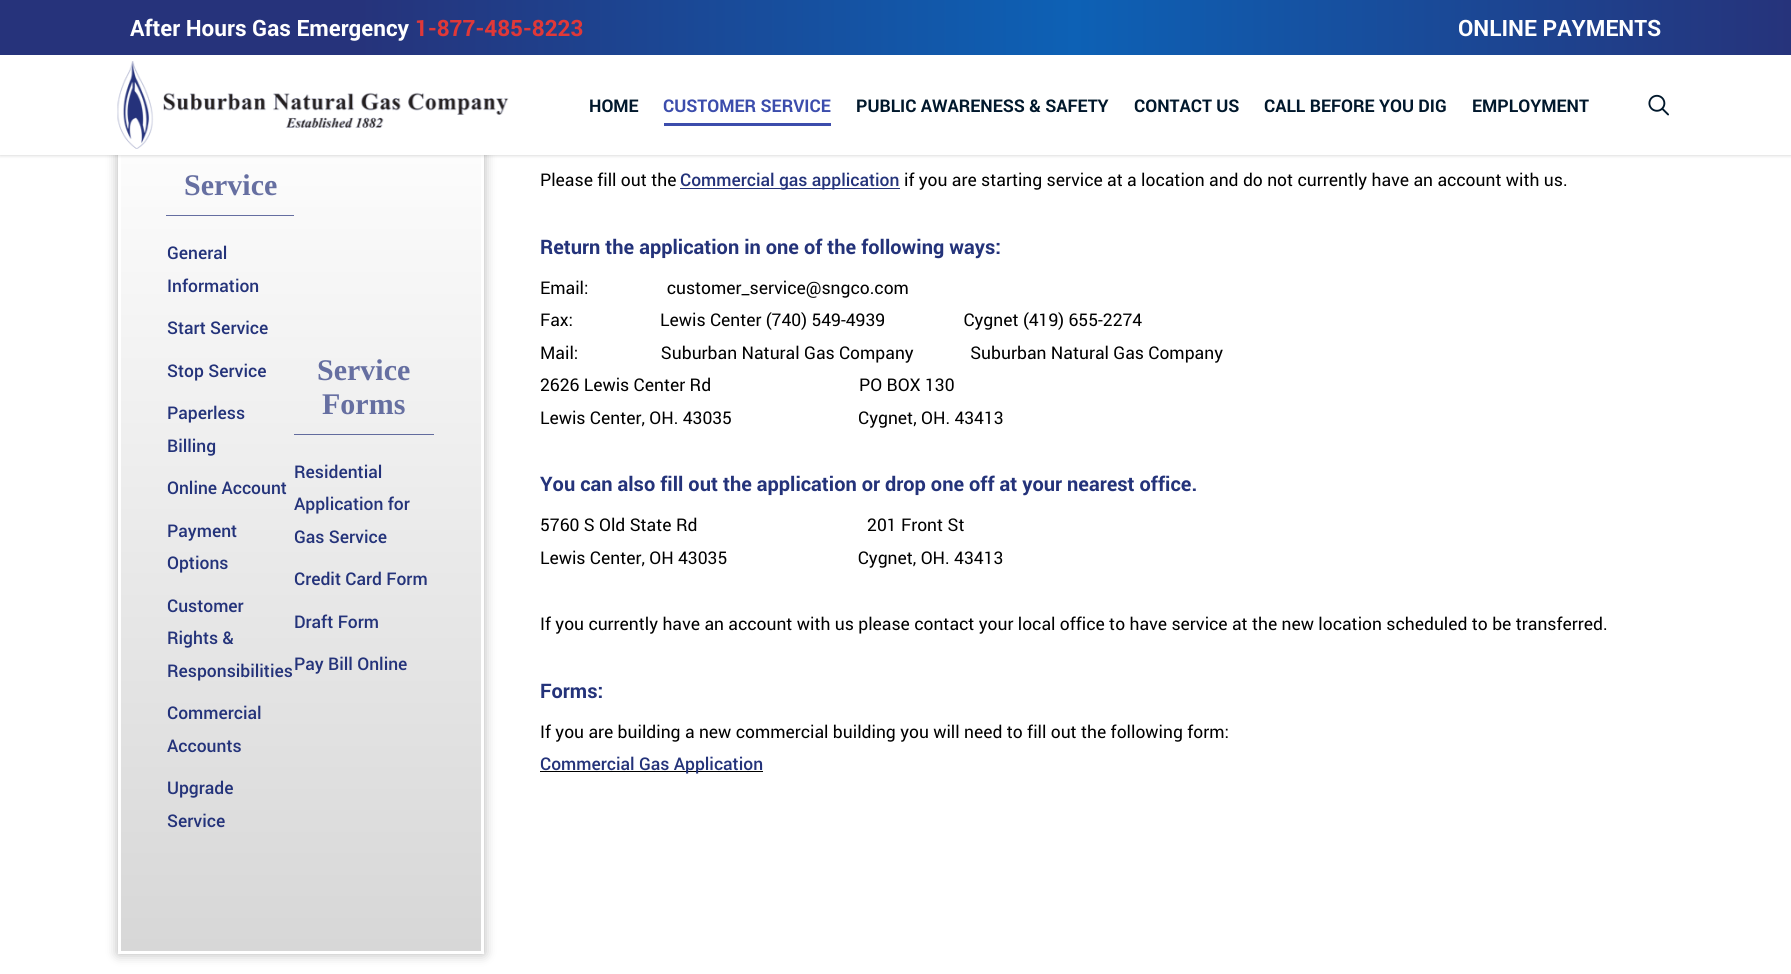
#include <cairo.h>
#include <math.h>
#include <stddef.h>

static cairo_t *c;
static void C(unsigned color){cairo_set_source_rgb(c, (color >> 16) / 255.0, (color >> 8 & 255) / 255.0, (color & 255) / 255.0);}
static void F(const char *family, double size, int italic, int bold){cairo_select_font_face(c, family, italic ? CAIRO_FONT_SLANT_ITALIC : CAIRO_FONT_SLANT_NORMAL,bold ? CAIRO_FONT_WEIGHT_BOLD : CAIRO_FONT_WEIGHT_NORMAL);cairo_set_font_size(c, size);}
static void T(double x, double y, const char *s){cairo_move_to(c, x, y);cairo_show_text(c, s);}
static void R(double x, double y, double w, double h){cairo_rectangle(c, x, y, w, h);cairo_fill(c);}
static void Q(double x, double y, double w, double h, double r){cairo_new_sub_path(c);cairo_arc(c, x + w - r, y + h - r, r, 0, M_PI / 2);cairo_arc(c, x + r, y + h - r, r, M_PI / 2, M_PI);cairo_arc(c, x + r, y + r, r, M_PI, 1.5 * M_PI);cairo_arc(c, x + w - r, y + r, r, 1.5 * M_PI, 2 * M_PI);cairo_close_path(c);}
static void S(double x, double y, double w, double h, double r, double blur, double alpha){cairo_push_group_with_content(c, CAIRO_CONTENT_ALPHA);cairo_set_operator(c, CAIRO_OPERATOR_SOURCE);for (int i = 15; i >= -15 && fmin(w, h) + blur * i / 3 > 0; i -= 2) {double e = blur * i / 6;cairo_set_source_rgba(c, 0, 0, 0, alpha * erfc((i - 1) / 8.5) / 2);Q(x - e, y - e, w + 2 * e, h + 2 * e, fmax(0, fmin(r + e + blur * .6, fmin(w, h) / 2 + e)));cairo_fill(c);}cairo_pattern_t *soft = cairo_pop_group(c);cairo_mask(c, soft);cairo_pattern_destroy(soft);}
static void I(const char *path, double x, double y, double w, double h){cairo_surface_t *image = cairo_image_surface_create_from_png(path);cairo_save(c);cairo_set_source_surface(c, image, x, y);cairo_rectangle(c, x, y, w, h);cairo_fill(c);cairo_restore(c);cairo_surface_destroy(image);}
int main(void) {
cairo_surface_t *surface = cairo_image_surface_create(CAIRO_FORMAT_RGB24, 1791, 974);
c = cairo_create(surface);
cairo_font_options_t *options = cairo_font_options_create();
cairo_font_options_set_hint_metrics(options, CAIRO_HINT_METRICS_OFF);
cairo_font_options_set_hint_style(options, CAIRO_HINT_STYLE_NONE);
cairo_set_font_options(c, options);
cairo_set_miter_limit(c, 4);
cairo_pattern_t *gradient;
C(0xffffff);
cairo_paint(c);
C(0x000000);
S(118,86,366,868,0,6,.3);
gradient = cairo_pattern_create_linear(301,89,301,951);
cairo_pattern_add_color_stop_rgba(gradient,0,1,1,1,1);
cairo_pattern_add_color_stop_rgba(gradient,1,0.843,0.843,0.843,1);
cairo_set_source(c,gradient);
cairo_pattern_destroy(gradient);
R(121,155,360,796);
cairo_rectangle(c,119.5,87.5,363,865);
C(0xffffff);
cairo_set_line_width(c,3);
cairo_stroke(c);
C(0x000000);
S(0,0,1791,155,0,2,.22);
C(0xffffff);
R(0,55,1791,100);
gradient = cairo_pattern_create_linear(0,28,1791,27);
cairo_pattern_add_color_stop_rgba(gradient,.2,0.149,0.2,0.482,1);
cairo_pattern_add_color_stop_rgba(gradient,.6,0.051,0.38,0.71,1);
cairo_pattern_add_color_stop_rgba(gradient,1,0.149,0.2,0.482,1);
cairo_set_source(c,gradient);
cairo_pattern_destroy(gradient);
R(0,0,1791,55);
F("Roboto",22.5,0,1);
C(0xffffff);
T(130,36,"After Hours Gas Emergency");
C(0xe03838);
T(415,36,"1-877-485-8223");
C(0xffffff);
T(1458,36,"ONLINE PAYMENTS");
I("1.png",117,61,392,88);
F("Roboto",17.5,0,1);
C(0x01182c);
T(589,112,"HOME");
C(0x3c4dac);
T(663,112,"CUSTOMER SERVICE");
R(664,123,167,3);
C(0x01182c);
T(856,112,"PUBLIC AWARENESS & SAFETY");
T(1134,112,"CONTACT US");
T(1264,112,"CALL BEFORE YOU DIG");
T(1472,112,"EMPLOYMENT");
I("2.png",1648,94,21,22);
C(0x656ea1);
R(166,215,128,1);
F("Liberation Serif",30,0,1);
C(0x666fa1);
T(184,195,"Service");
F("Roboto Medium",17.5,0,0);
C(0x24337a);
T(167,259,"General");
T(167,292,"Information");
T(167,334,"Start Service");
T(167,377,"Stop Service");
T(167,419,"Paperless");
T(167,452,"Billing");
T(167,494,"Online Account");
T(167,537,"Payment");
T(167,569,"Options");
T(167,612,"Customer");
T(167,644,"Rights &");
T(167,677,"Responsibilities");
T(167,719,"Commercial");
T(167,752,"Accounts");
T(167,794,"Upgrade");
T(167,827,"Service");
C(0x626b9e);
R(294,434,140,1);
F("Liberation Serif",30,0,1);
C(0x666fa1);
T(317,380,"Service");
T(322,414,"Forms");
F("Roboto Medium",17.5,0,0);
C(0x24337a);
T(294,478,"Residential");
T(294,510,"Application for");
T(294,543,"Gas Service");
T(294,585,"Credit Card Form");
T(294,628,"Draft Form");
T(294,670,"Pay Bill Online");
F("Roboto",17.5,0,0);
C(0x000000);
T(540,186,"Please fill out the");
C(0x24337a);
R(680,188,220,1);
F("Roboto Medium",17.5,0,0);
T(680,186,"Commercial gas application");
F("Roboto",17.5,0,0);
C(0x000000);
T(904,186,"if you are starting service at a location and do not currently have an account with us.");
F("Roboto",20,0,1);
C(0x24337a);
T(540,254,"Return the application in one of the following ways:");
F("Roboto",17.5,0,0);
C(0x000000);
T(540,294,"Email:                  customer_service@sngco.com");
T(540,326,"Fax:                    Lewis Center (740) 549-4939                  Cygnet (419) 655-2274");
T(540,359,"Mail:                   Suburban Natural Gas Company             Suburban Natural Gas Company");
T(540,391,"2626 Lewis Center Rd                                  PO BOX 130");
T(540,424,"Lewis Center, OH. 43035                             Cygnet, OH. 43413");
F("Roboto",20,0,1);
C(0x24337a);
T(540,491,"You can also fill out the application or drop one off at your nearest office.");
F("Roboto",17.5,0,0);
C(0x000000);
T(540,531,"5760 S Old State Rd                                       201 Front St");
T(540,564,"Lewis Center, OH 43035                              Cygnet, OH. 43413");
T(540,630,"If you currently have an account with us please contact your local office to have service at the new location scheduled to be transferred.");
F("Roboto",20,0,1);
C(0x24337a);
T(540,698,"Forms:");
F("Roboto",17.5,0,0);
C(0x000000);
T(540,738,"If you are building a new commercial building you will need to fill out the following form:");
R(540,771,223,1);
F("Roboto Medium",17.5,0,0);
C(0x24337a);
T(540,770,"Commercial Gas Application");
cairo_surface_write_to_png(surface, "o.png");
cairo_font_options_destroy(options);
cairo_destroy(c);
cairo_surface_destroy(surface);
return 0;
}
